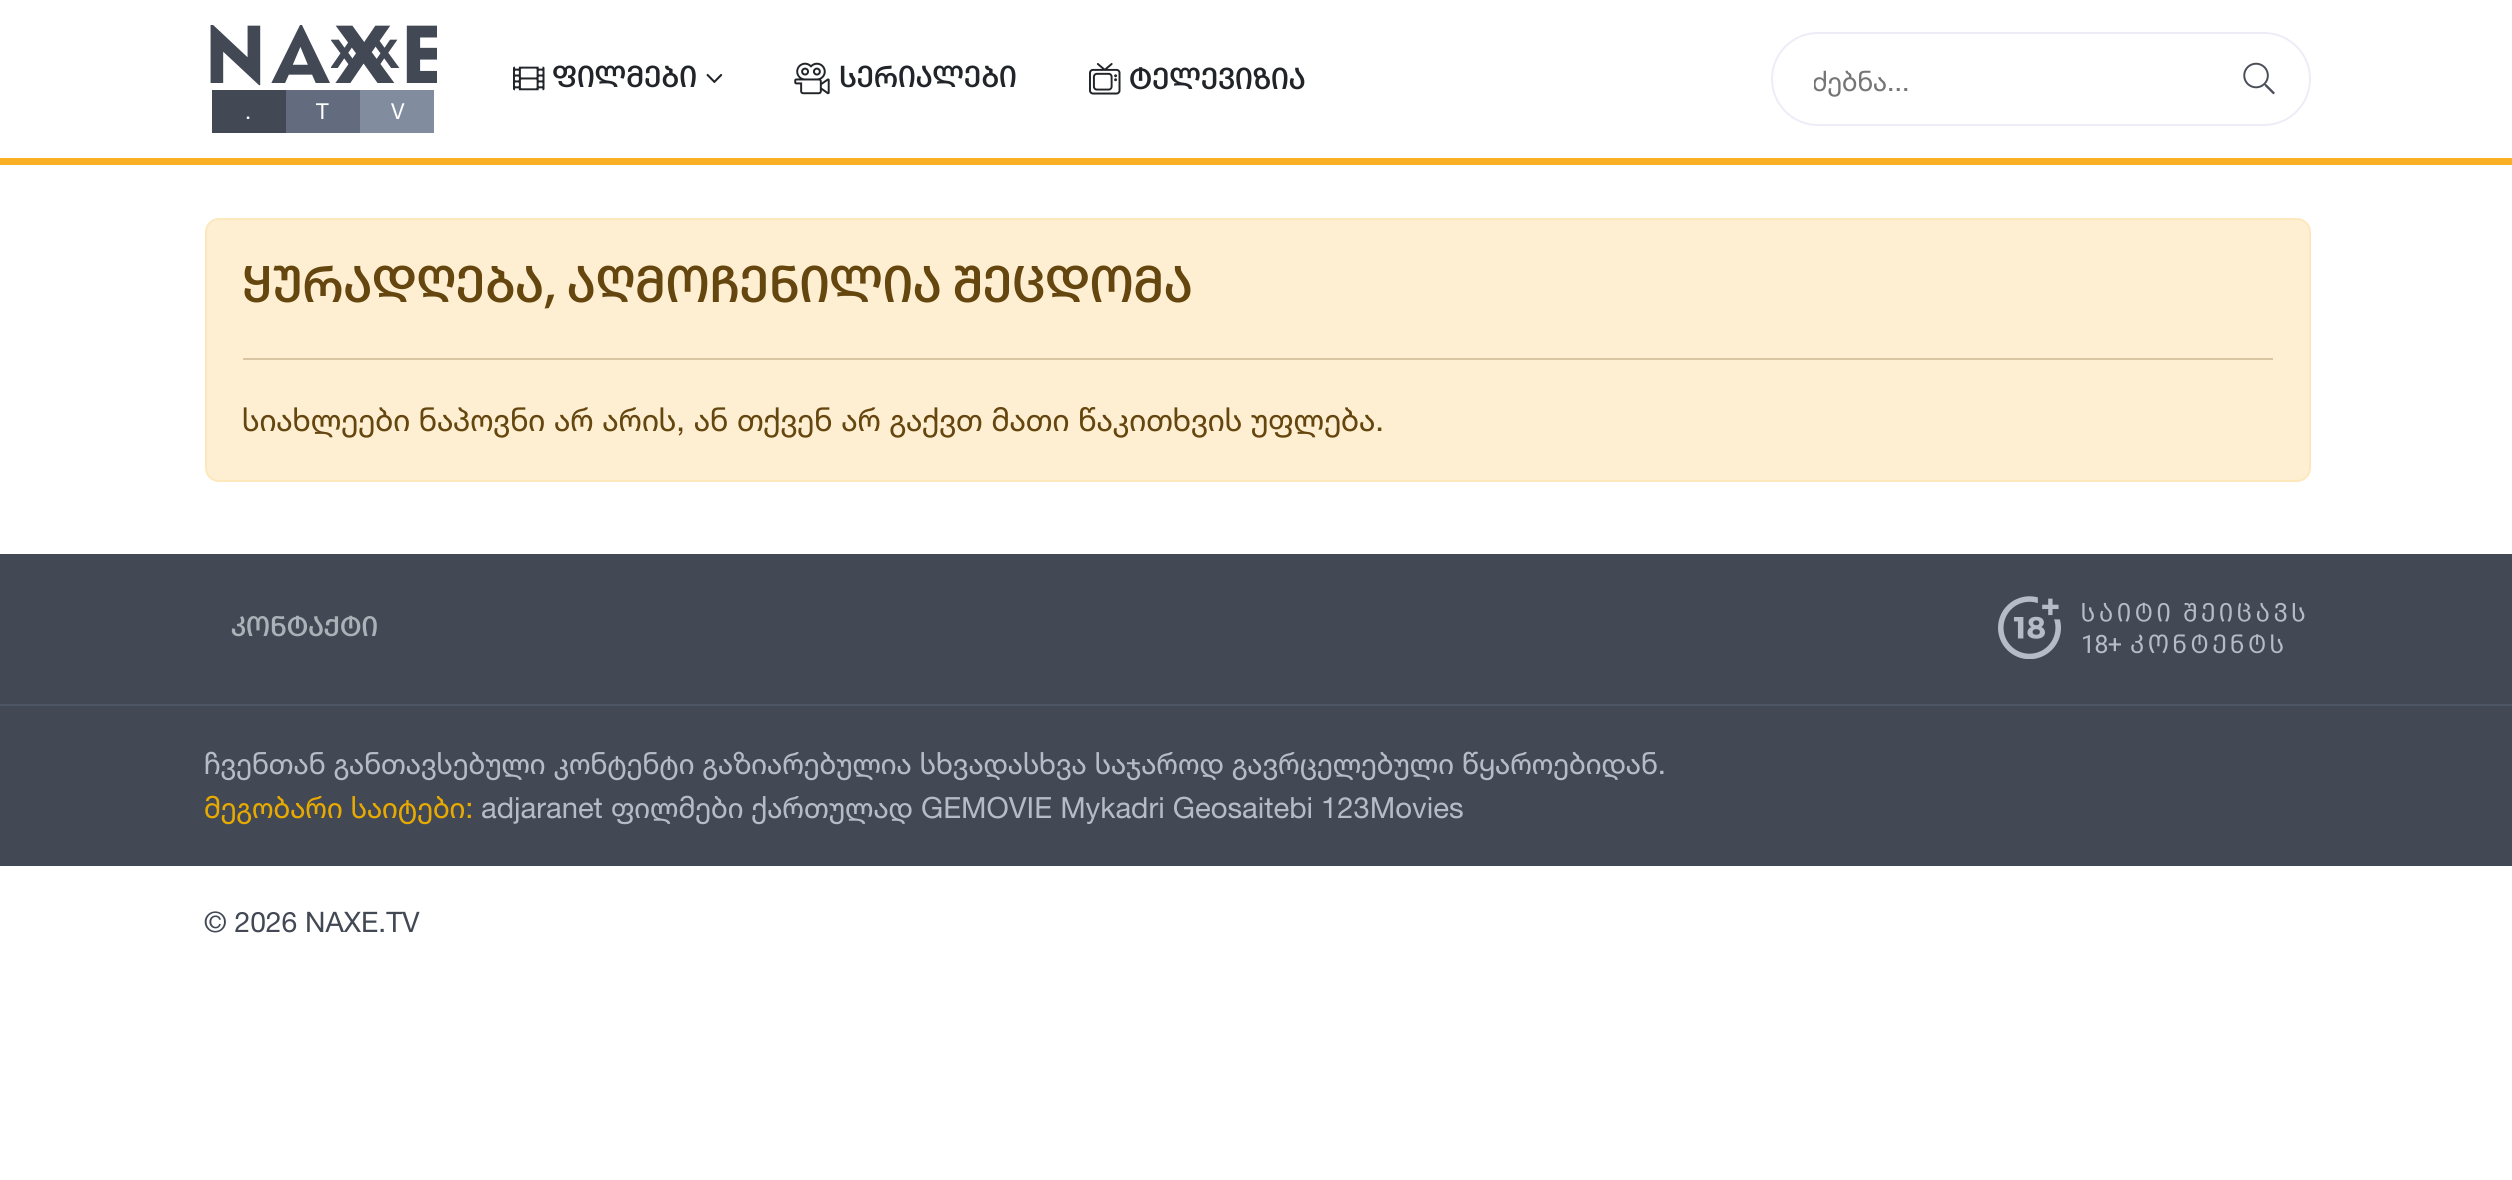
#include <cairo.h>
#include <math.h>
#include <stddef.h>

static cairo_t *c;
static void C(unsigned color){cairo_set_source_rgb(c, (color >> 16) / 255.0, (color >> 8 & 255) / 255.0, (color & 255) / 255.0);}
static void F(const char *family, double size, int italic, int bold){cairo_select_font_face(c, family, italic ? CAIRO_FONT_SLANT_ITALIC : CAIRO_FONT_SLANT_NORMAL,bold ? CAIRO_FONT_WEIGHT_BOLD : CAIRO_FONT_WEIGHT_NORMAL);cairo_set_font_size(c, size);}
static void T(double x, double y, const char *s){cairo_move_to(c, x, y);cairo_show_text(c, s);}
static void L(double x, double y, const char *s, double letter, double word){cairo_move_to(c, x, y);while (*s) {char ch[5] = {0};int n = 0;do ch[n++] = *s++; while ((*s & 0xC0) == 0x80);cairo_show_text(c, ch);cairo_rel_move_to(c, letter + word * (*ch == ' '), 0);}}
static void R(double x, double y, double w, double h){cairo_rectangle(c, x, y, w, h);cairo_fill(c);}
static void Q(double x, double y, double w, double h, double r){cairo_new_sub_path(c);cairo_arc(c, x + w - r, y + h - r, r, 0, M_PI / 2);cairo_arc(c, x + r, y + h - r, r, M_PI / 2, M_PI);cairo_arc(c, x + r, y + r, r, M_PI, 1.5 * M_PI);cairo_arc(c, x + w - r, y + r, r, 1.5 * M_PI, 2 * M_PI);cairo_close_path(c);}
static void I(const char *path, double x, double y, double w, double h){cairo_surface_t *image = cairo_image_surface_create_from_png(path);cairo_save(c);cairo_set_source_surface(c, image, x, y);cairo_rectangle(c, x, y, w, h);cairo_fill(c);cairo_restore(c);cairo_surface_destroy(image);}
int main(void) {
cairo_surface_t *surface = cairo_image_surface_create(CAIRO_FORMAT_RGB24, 2512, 1180);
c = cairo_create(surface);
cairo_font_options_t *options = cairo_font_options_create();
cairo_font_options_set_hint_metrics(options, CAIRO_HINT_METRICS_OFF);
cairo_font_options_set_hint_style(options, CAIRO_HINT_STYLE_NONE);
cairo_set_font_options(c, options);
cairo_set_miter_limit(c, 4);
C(0xffffff);
cairo_paint(c);
C(0xf9b024);
R(0,158,2512,7);
cairo_save(c);
cairo_rectangle(c,331,25,34,108);
cairo_clip(c);
F("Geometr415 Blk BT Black",40,0,0);
C(0x424955);
L(330,68,"X",7,0);
cairo_restore(c);
F("Geometr415 Blk BT Black",40,0,0);
C(0x424955);
L(370,68,"X",7,0);
cairo_save(c);
cairo_rectangle(c,205,25,232,108);
cairo_clip(c);
F("Geometr415 Blk BT Black",81,0,0);
L(204,83,"NAXE",7,0);
cairo_restore(c);
R(212,90,74,43);
F("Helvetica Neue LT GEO",22,0,0);
C(0xffffff);
T(245,119,".");
C(0x626c7e);
R(286,90,74,43);
C(0xffffff);
T(316,119,"T");
C(0x828c9f);
R(360,90,74,43);
C(0xffffff);
T(391,119,"V");
I("1.png",513,66,32,25);
F("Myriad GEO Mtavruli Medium",31.5,0,0);
C(0x212529);
T(552,87,"ფილმები");
I("2.png",706,73,17,10);
I("3.png",794,62,36,33);
T(839,87,"სერიალები");
I("4.png",1089,63,32,32);
T(1129,89,"ტელევიზია");
Q(1772,33,538,92,46);
C(0xeeedf7);
cairo_stroke(c);
cairo_save(c);
cairo_rectangle(c,1814,65,402,34);
cairo_clip(c);
F("Helvetica Neue LT GEO",27,0,0);
C(0x757575);
T(1812,91,"ძებნა...");
cairo_restore(c);
I("5.png",2243,62,32,33);
C(0xfeefd3);
Q(206,219,2104,262,13);
cairo_fill_preserve(c);
C(0xfde7bd);
cairo_stroke(c);
F("Myriad GEO Mtavruli Medium",53.4,0,0);
C(0x64460e);
T(242,302,"ყურადღება, აღმოჩენილია შეცდომა");
C(0xd8c5a2);
R(243,358,2030,2);
F("Helvetica Neue LT GEO",31.5,0,0);
C(0x64460e);
T(242,431,"სიახლეები ნაპოვნი არ არის, ან თქვენ არ გაქვთ მათი წაკითხვის უფლება.");
C(0x424955);
R(0,554,2512,312);
C(0x4d5664);
R(0,704,2512,2);
F("Myriad GEO Mtavruli Medium",29.25,0,0);
C(0xacb0b7);
T(231,636,"კონტაქტი");
I("6.png",1998,596,307,63);
F("Helvetica Neue LT GEO",29.25,0,0);
C(0xb6bcc7);
T(204,774,"ჩვენთან განთავსებული კონტენტი გაზიარებულია სხვადასხვა საჯაროდ გავრცელებული წყაროებიდან.");
C(0xe8aa00);
T(204,818,"მეგობარი საიტები:");
C(0xb6bcc7);
T(481,818,"adjaranet ფილმები ქართულად GEMOVIE Mykadri Geosaitebi 123Movies");
F("Helvetica Neue LT GEO",28.25,0,0);
C(0x424955);
T(204,932,"© 2026 NAXE.TV");
cairo_surface_write_to_png(surface, "o.png");
cairo_font_options_destroy(options);
cairo_destroy(c);
cairo_surface_destroy(surface);
return 0;
}
